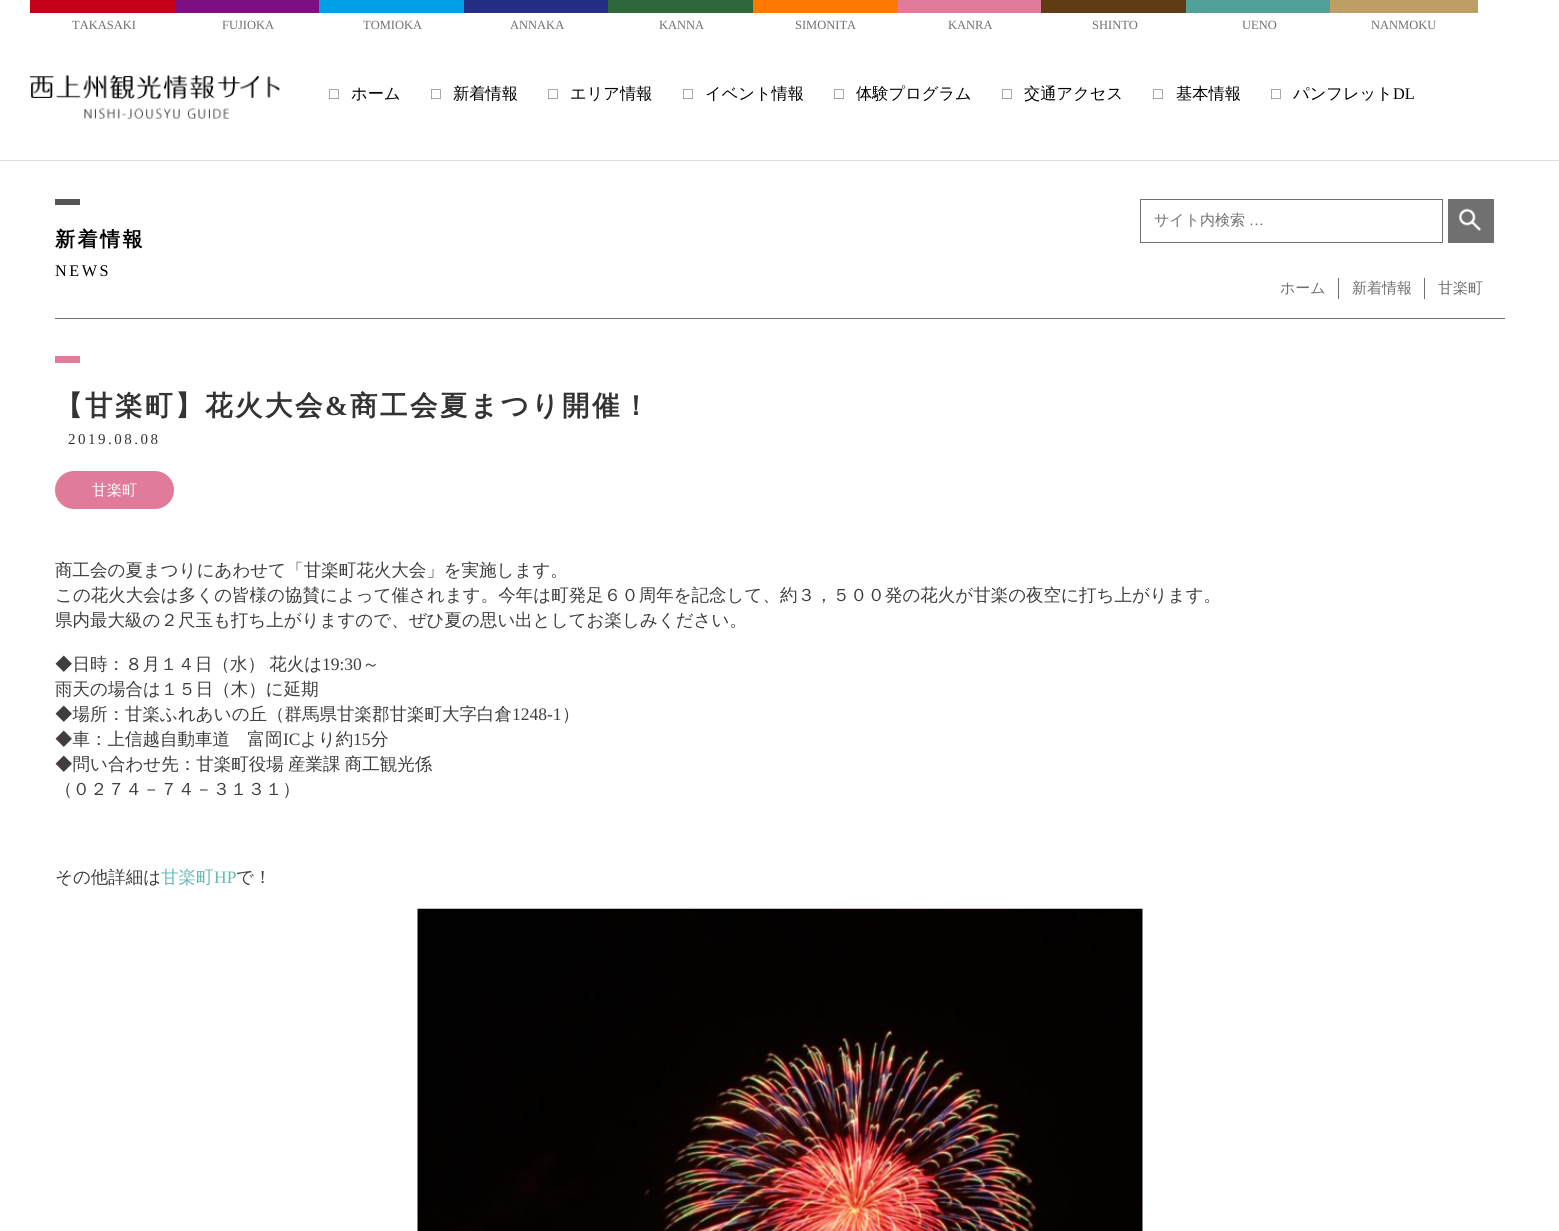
#include <cairo.h>
#include <math.h>
#include <stddef.h>

static cairo_t *c;
static void C(unsigned color){cairo_set_source_rgb(c, (color >> 16) / 255.0, (color >> 8 & 255) / 255.0, (color & 255) / 255.0);}
static void F(const char *family, double size, int italic, int bold){cairo_select_font_face(c, family, italic ? CAIRO_FONT_SLANT_ITALIC : CAIRO_FONT_SLANT_NORMAL,bold ? CAIRO_FONT_WEIGHT_BOLD : CAIRO_FONT_WEIGHT_NORMAL);cairo_set_font_size(c, size);}
static void T(double x, double y, const char *s){cairo_move_to(c, x, y);cairo_show_text(c, s);}
static void L(double x, double y, const char *s, double letter, double word){cairo_move_to(c, x, y);while (*s) {char ch[5] = {0};int n = 0;do ch[n++] = *s++; while ((*s & 0xC0) == 0x80);cairo_show_text(c, ch);cairo_rel_move_to(c, letter + word * (*ch == ' '), 0);}}
static void R(double x, double y, double w, double h){cairo_rectangle(c, x, y, w, h);cairo_fill(c);}
static void Q(double x, double y, double w, double h, double r){cairo_new_sub_path(c);cairo_arc(c, x + w - r, y + h - r, r, 0, M_PI / 2);cairo_arc(c, x + r, y + h - r, r, M_PI / 2, M_PI);cairo_arc(c, x + r, y + r, r, M_PI, 1.5 * M_PI);cairo_arc(c, x + w - r, y + r, r, 1.5 * M_PI, 2 * M_PI);cairo_close_path(c);}
static void I(const char *path, double x, double y, double w, double h){cairo_surface_t *image = cairo_image_surface_create_from_png(path);cairo_save(c);cairo_set_source_surface(c, image, x, y);cairo_rectangle(c, x, y, w, h);cairo_fill(c);cairo_restore(c);cairo_surface_destroy(image);}
int main(void) {
cairo_surface_t *surface = cairo_image_surface_create(CAIRO_FORMAT_RGB24, 1559, 1231);
c = cairo_create(surface);
cairo_font_options_t *options = cairo_font_options_create();
cairo_font_options_set_hint_metrics(options, CAIRO_HINT_METRICS_OFF);
cairo_font_options_set_hint_style(options, CAIRO_HINT_STYLE_NONE);
cairo_set_font_options(c, options);
cairo_set_miter_limit(c, 4);
C(0xffffff);
cairo_paint(c);
C(0xc50018);
R(30,0,145,13);
F("Liberation Serif",12.5,0,0);
C(0x717071);
T(72,29,"TAKASAKI");
C(0x7d0f80);
R(175,0,144,13);
C(0x717071);
T(222,29,"FUJIOKA");
C(0x009fe6);
R(319,0,145,13);
C(0x717071);
T(363,29,"TOMIOKA");
C(0x232e84);
R(464,0,144,13);
C(0x717071);
T(510,29,"ANNAKA");
C(0x2e683a);
R(608,0,145,13);
C(0x717071);
T(659,29,"KANNA");
C(0xff7800);
R(753,0,145,13);
C(0x717071);
T(795,29,"SIMONITA");
C(0xe07c9a);
R(898,0,143,13);
C(0x717071);
T(948,29,"KANRA");
C(0x5f3c13);
R(1041,0,145,13);
C(0x717071);
T(1092,29,"SHINTO");
C(0x51a199);
R(1186,0,144,13);
C(0x717071);
T(1242,29,"UENO");
C(0xbd9f66);
R(1330,0,148,13);
C(0x717071);
T(1371,29,"NANMOKU");
I("1.png",30,75,250,44);
F("Liberation Serif",16.25,0,0);
T(329,99,"□");
F("WenQuanYi Zen Hei Medium",16.25,0,0);
C(0x000000);
T(351,99,"ホーム");
F("Liberation Serif",16.25,0,0);
C(0x717071);
T(431,99,"□");
F("WenQuanYi Zen Hei Medium",16.25,0,0);
C(0x000000);
T(453,99,"新着情報");
F("Liberation Serif",16.25,0,0);
C(0x717071);
T(548,99,"□");
F("WenQuanYi Zen Hei Medium",16.25,0,0);
C(0x000000);
T(570,99,"エリア情報");
F("Liberation Serif",16.25,0,0);
C(0x717071);
T(683,99,"□");
F("WenQuanYi Zen Hei Medium",16.25,0,0);
C(0x000000);
T(705,99,"イベント情報");
F("Liberation Serif",16.25,0,0);
C(0x717071);
T(834,99,"□");
F("WenQuanYi Zen Hei Medium",16.25,0,0);
C(0x000000);
T(856,99,"体験プログラム");
F("Liberation Serif",16.25,0,0);
C(0x717071);
T(1002,99,"□");
F("WenQuanYi Zen Hei Medium",16.25,0,0);
C(0x000000);
T(1024,99,"交通アクセス");
F("Liberation Serif",16.25,0,0);
C(0x717071);
T(1153,99,"□");
F("WenQuanYi Zen Hei Medium",16.25,0,0);
C(0x000000);
T(1176,99,"基本情報");
F("Liberation Serif",16.25,0,0);
C(0x717071);
T(1271,99,"□");
F("WenQuanYi Zen Hei Medium",16.25,0,0);
C(0x000000);
T(1293,99,"パンフレット");
F("Liberation Serif",16.25,0,0);
T(1393,99,"DL");
C(0xe1dfdf);
R(0,160,1559,1);
C(0x717071);
R(55,318,1450,1);
C(0x555555);
R(55,199,25,6);
F("WenQuanYi Zen Hei",20,0,1);
C(0x000000);
L(55,246,"新着情報",2.5,0);
F("Liberation Serif",16.25,0,0);
L(55,276,"NEWS",2.5,0);
cairo_rectangle(c,1140.5,199.5,302,43);
C(0x717071);
cairo_set_line_width(c,1);
cairo_stroke(c);
F("WenQuanYi Zen Hei Medium",15,0,0);
T(1154,225,"サイト内検索");
F("Liberation Serif",15,0,0);
T(1249,225,"…");
R(1448,199,46,44);
I("2.png",1458,208,23,23);
R(1338,278,1,21);
F("WenQuanYi Zen Hei Medium",15,0,0);
T(1280,293,"ホーム");
R(1424,278,1,21);
T(1352,293,"新着情報");
T(1438,293,"甘楽町");
C(0xe07c9a);
R(55,356,25,7);
F("WenQuanYi Zen Hei",27.5,0,1);
C(0x333333);
L(55,415,"【甘楽町】花火大会",2.5,0);
F("Liberation Serif",27.5,0,1);
L(325,415,"&",2.5,0);
F("WenQuanYi Zen Hei",27.5,0,1);
L(350,415,"商工会夏まつり開催！",2.5,0);
F("Liberation Serif",15,0,0);
L(68,444,"2019.08.08",2.5,0);
C(0xe07c9a);
Q(55,471,119,38,19);
cairo_fill(c);
F("WenQuanYi Zen Hei Medium",15,0,0);
C(0xffffff);
T(92,495,"甘楽町");
F("WenQuanYi Zen Hei Medium",17.5,0,0);
C(0x403d3c);
T(55,576,"商工会の夏まつりにあわせて「甘楽町花火大会」を実施します。");
T(55,601,"この花火大会は多くの皆様の協賛によって催されます。今年は町発足６０周年を記念して、約３，５００発の花火が甘楽の夜空に打ち上がります。");
T(55,626,"県内最大級の２尺玉も打ち上がりますので、ぜひ夏の思い出としてお楽しみください。");
L(55,670,"◆日時：８月１４日（水） 花火は",0,-1);
F("Liberation Serif",17.5,0,0);
T(322,670,"19:30");
F("WenQuanYi Zen Hei Medium",17.5,0,0);
T(362,670,"～");
T(55,695,"雨天の場合は１５日（木）に延期");
T(55,720,"◆場所：甘楽ふれあいの丘（群馬県甘楽郡甘楽町大字白倉");
F("Liberation Serif",17.5,0,0);
T(512,720,"1248-1");
F("WenQuanYi Zen Hei Medium",17.5,0,0);
T(562,720,"）");
T(55,745,"◆車：上信越自動車道　富岡");
F("Liberation Serif",17.5,0,0);
T(283,745,"IC");
F("WenQuanYi Zen Hei Medium",17.5,0,0);
T(300,745,"より約");
F("Liberation Serif",17.5,0,0);
T(353,745,"15");
F("WenQuanYi Zen Hei Medium",17.5,0,0);
T(371,745,"分");
L(55,770,"◆問い合わせ先：甘楽町役場 産業課 商工観光係",0,-1);
T(55,795,"（０２７４－７４－３１３１）");
T(55,883,"その他詳細は");
C(0x65bab3);
T(161,883,"甘楽町");
F("Liberation Serif",17.5,0,0);
T(214,883,"HP");
F("WenQuanYi Zen Hei Medium",17.5,0,0);
C(0x403d3c);
T(236,883,"で！");
I("3.png",417,908,726,323);
cairo_surface_write_to_png(surface, "o.png");
cairo_font_options_destroy(options);
cairo_destroy(c);
cairo_surface_destroy(surface);
return 0;
}
